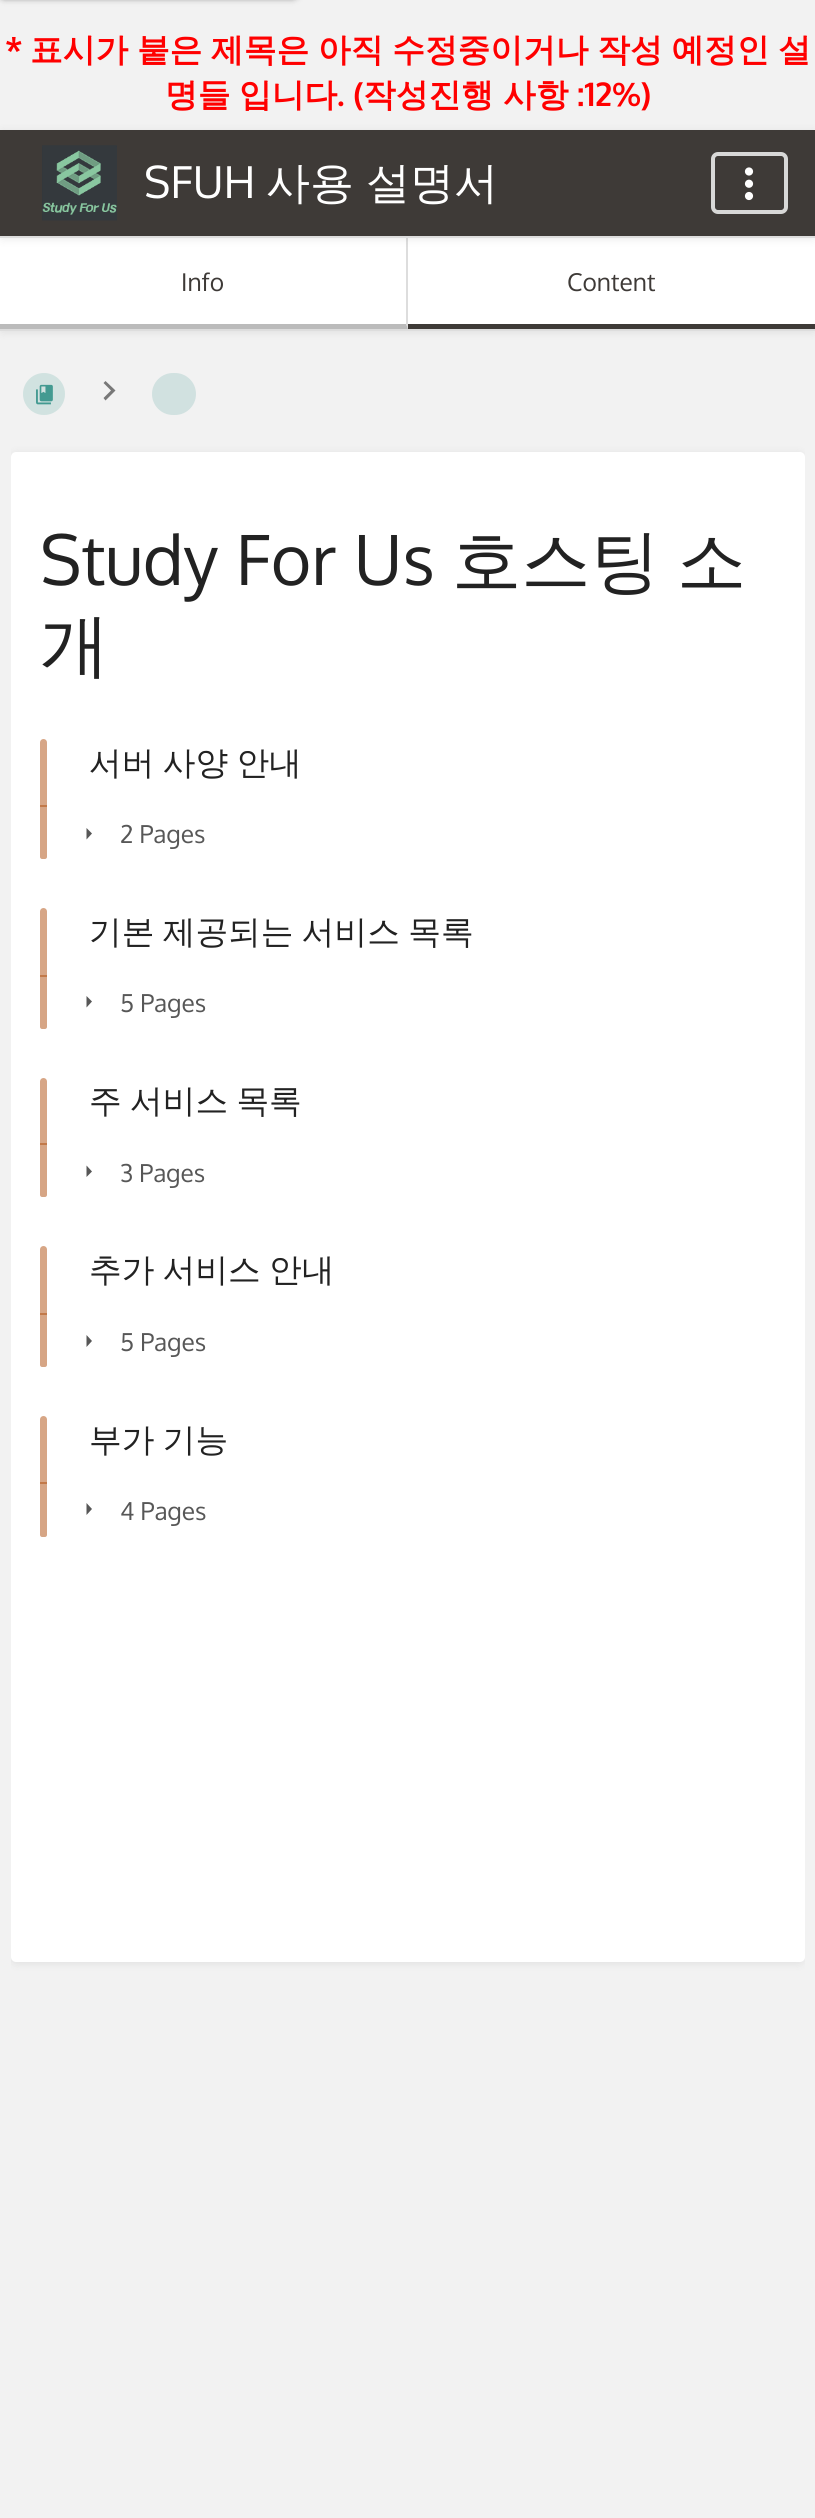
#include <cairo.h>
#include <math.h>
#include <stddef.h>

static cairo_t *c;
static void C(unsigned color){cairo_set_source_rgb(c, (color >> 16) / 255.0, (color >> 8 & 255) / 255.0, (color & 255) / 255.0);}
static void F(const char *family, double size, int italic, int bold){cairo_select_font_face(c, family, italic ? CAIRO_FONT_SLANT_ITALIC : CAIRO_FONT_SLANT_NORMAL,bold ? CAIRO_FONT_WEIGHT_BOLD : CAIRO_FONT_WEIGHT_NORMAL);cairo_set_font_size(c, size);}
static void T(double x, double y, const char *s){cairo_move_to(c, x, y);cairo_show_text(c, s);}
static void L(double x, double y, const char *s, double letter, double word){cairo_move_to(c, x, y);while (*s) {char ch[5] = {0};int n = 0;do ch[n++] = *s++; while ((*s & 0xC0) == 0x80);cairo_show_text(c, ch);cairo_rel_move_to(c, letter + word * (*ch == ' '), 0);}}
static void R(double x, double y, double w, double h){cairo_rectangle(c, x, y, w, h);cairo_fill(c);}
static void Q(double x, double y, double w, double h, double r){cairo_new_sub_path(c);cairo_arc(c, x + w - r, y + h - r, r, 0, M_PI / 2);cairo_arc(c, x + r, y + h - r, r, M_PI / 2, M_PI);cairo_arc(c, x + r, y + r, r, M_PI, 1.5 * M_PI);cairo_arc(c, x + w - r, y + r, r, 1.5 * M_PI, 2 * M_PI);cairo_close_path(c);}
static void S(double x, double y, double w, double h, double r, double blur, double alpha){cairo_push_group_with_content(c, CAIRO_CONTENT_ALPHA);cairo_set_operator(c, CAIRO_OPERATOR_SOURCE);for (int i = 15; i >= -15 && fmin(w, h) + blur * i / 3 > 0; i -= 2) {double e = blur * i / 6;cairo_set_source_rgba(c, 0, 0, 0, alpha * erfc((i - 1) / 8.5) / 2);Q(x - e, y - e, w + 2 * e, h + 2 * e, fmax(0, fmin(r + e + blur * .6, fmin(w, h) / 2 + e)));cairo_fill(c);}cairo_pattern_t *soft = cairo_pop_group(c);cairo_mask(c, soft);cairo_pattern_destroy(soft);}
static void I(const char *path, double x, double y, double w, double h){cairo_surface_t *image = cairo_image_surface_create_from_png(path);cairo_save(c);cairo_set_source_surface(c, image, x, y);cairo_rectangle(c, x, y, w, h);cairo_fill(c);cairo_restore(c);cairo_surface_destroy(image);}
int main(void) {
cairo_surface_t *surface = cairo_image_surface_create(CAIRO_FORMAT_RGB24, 815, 2518);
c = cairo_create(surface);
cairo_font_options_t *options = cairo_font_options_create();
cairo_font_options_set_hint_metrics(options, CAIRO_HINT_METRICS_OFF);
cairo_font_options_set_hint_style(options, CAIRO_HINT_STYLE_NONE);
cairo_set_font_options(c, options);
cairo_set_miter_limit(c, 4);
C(0xf2f2f2);
cairo_paint(c);
C(0x000000);
S(-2,-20,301,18,9,3.5,.5);
F("Oxygen",32.7,0,1);
C(0xff0000);
T(5,61,"*");
F("WenQuanYi Zen Hei",32.7,0,1);
L(30,61,"표시가 붙은 제목은 아직 수정중이거나 작성 예정인 설",0,-1);
T(165,106,"명들");
T(239,106,"입니다");
F("Oxygen",32.7,0,1);
T(337,106,". (");
F("WenQuanYi Zen Hei",32.7,0,1);
T(363,106,"작성진행");
T(503,106,"사항");
F("Oxygen",32.7,0,1);
T(577,106,":12%)");
C(0x000000);
S(2,242,812,89,0,5,.1);
C(0xffffff);
R(0,238,815,91);
C(0xdddddd);
cairo_new_path(c);
cairo_move_to(c,408,238);
cairo_line_to(c,408,329);
cairo_line_to(c,406,324);
cairo_line_to(c,406,238);
cairo_close_path(c);
cairo_fill(c);
C(0x000000);
S(2,133,812,105,0,5,.1);
C(0x3e3a37);
R(0,130,815,106);
C(0xdddddd);
R(0,236,815,2);
I("1.png",42,145,75,76);
F("Oxygen",44,0,0);
C(0xffffff);
T(144,198,"SFUH");
F("WenQuanYi Zen Hei Medium",44,0,0);
L(266,198,"사용 설명서",0,-1);
Q(713,154,73,58,5);
C(0xd8d8d7);
cairo_set_line_width(c,4);
cairo_stroke(c);
I("2.png",744,167,10,34);
C(0xdddddd);
R(0,329,815,2);
C(0xbbbbbb);
cairo_new_path(c);
cairo_move_to(c,408,329);
cairo_line_to(c,0,329);
cairo_line_to(c,0,324);
cairo_line_to(c,406,324);
cairo_close_path(c);
cairo_fill(c);
F("Oxygen",24.5,0,0);
C(0x3e3a37);
T(181,291,"Info");
R(408,324,407,5);
T(567,291,"Content");
I("3.png",36,384,17,21);
cairo_set_source_rgba(c,0.027,0.482,0.439,0.14);
cairo_arc(c,44,394,21,0,2 * M_PI);
cairo_fill(c);
C(0x787878);
cairo_new_path(c);
cairo_move_to(c,105.5,381);
cairo_line_to(c,103.5,383);
cairo_line_to(c,111,390.5);
cairo_line_to(c,103.5,398);
cairo_line_to(c,105.5,400.5);
cairo_line_to(c,115.5,390.5);
cairo_close_path(c);
cairo_fill(c);
C(0xd1e1e0);
Q(152,373,44,42,21);
cairo_fill(c);
cairo_save(c);
cairo_rectangle(c,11,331,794,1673);
cairo_clip(c);
C(0x000000);
S(12,455,791,1507,4,5,.1);
cairo_restore(c);
C(0xffffff);
Q(11,452,794,1510,5);
cairo_fill(c);
F("Oxygen",69.25,0,0);
C(0x222222);
T(40,585,"Study For Us");
F("WenQuanYi Zen Hei Medium",69.25,0,0);
T(452,585,"호스팅");
T(677,585,"소");
T(40,669,"개");
C(0xd7a686);
cairo_new_path(c);
cairo_move_to(c,43.5,739);
cairo_curve_to(c,45.5,739,47,740.5,47,742.5);
cairo_line_to(c,47,805);
cairo_line_to(c,40,805);
cairo_line_to(c,40,742.5);
cairo_curve_to(c,40,740.5,41.5,739,43.5,739);
cairo_close_path(c);
cairo_fill(c);
F("WenQuanYi Zen Hei Medium",32.7,0,0);
C(0x222222);
L(89,774,"서버 사양 안내",0,-1.5);
C(0xd7a686);
R(40,805,7,2);
cairo_set_source_rgba(c,0.686,0.302,0.051,0.5);
cairo_new_path(c);
cairo_move_to(c,40,805);
cairo_line_to(c,47,805);
cairo_line_to(c,47,857);
cairo_curve_to(c,47,858,46,859,45,859);
cairo_line_to(c,42,859);
cairo_curve_to(c,41,859,40,858,40,857);
cairo_close_path(c);
cairo_fill(c);
C(0x575757);
cairo_new_path(c);
cairo_move_to(c,86.5,839.5);
cairo_line_to(c,92,833.5);
cairo_line_to(c,86.5,828);
cairo_close_path(c);
cairo_fill(c);
F("Oxygen",24.5,0,0);
T(120,843,"2 Pages");
C(0xd7a686);
cairo_new_path(c);
cairo_move_to(c,43.5,908);
cairo_curve_to(c,45.5,908,47,909.5,47,911.5);
cairo_line_to(c,47,975);
cairo_line_to(c,40,975);
cairo_line_to(c,40,911.5);
cairo_curve_to(c,40,909.5,41.5,908,43.5,908);
cairo_close_path(c);
cairo_fill(c);
F("WenQuanYi Zen Hei Medium",32.7,0,0);
C(0x222222);
L(89,943,"기본 제공되는 서비스 목록",0,-1.5);
C(0xd7a686);
R(40,975,7,2);
cairo_set_source_rgba(c,0.686,0.302,0.051,0.5);
cairo_new_path(c);
cairo_move_to(c,40,975);
cairo_line_to(c,47,975);
cairo_line_to(c,47,1027);
cairo_curve_to(c,47,1028,46,1029,45,1029);
cairo_line_to(c,42,1029);
cairo_curve_to(c,41,1029,40,1028,40,1027);
cairo_close_path(c);
cairo_fill(c);
C(0x575757);
cairo_new_path(c);
cairo_move_to(c,86.5,1007.5);
cairo_line_to(c,92,1001.5);
cairo_line_to(c,86.5,996);
cairo_close_path(c);
cairo_fill(c);
F("Oxygen",24.5,0,0);
T(120,1012,"5 Pages");
C(0xd7a686);
cairo_new_path(c);
cairo_move_to(c,43.5,1078);
cairo_curve_to(c,45.5,1078,47,1079.5,47,1081.5);
cairo_line_to(c,47,1143);
cairo_line_to(c,40,1143);
cairo_line_to(c,40,1081.5);
cairo_curve_to(c,40,1079.5,41.5,1078,43.5,1078);
cairo_close_path(c);
cairo_fill(c);
F("WenQuanYi Zen Hei Medium",32.7,0,0);
C(0x222222);
L(89,1112,"주 서비스 목록",0,-1.5);
C(0xd7a686);
R(40,1143,7,2);
cairo_set_source_rgba(c,0.686,0.302,0.051,0.5);
cairo_new_path(c);
cairo_move_to(c,40,1143);
cairo_line_to(c,47,1143);
cairo_line_to(c,47,1195);
cairo_curve_to(c,47,1196,46,1197,45,1197);
cairo_line_to(c,42,1197);
cairo_curve_to(c,41,1197,40,1196,40,1195);
cairo_close_path(c);
cairo_fill(c);
C(0x575757);
cairo_new_path(c);
cairo_move_to(c,86.5,1177);
cairo_line_to(c,92,1171.5);
cairo_line_to(c,86.5,1165.5);
cairo_close_path(c);
cairo_fill(c);
F("Oxygen",24.5,0,0);
T(120,1182,"3 Pages");
C(0xd7a686);
cairo_new_path(c);
cairo_move_to(c,43.5,1246);
cairo_curve_to(c,45.5,1246,47,1247.5,47,1249.5);
cairo_line_to(c,47,1313);
cairo_line_to(c,40,1313);
cairo_line_to(c,40,1249.5);
cairo_curve_to(c,40,1247.5,41.5,1246,43.5,1246);
cairo_close_path(c);
cairo_fill(c);
F("WenQuanYi Zen Hei Medium",32.7,0,0);
C(0x222222);
L(89,1281,"추가 서비스 안내",0,-1.5);
C(0xd7a686);
R(40,1313,7,2);
cairo_set_source_rgba(c,0.686,0.302,0.051,0.5);
cairo_new_path(c);
cairo_move_to(c,40,1313);
cairo_line_to(c,47,1313);
cairo_line_to(c,47,1365);
cairo_curve_to(c,47,1366,46,1367,45,1367);
cairo_line_to(c,42,1367);
cairo_curve_to(c,41,1367,40,1366,40,1365);
cairo_close_path(c);
cairo_fill(c);
C(0x575757);
cairo_new_path(c);
cairo_move_to(c,86.5,1347);
cairo_line_to(c,92,1341);
cairo_line_to(c,86.5,1335);
cairo_close_path(c);
cairo_fill(c);
F("Oxygen",24.5,0,0);
T(120,1351,"5 Pages");
C(0xd7a686);
cairo_new_path(c);
cairo_move_to(c,43.5,1416);
cairo_curve_to(c,45.5,1416,47,1417.5,47,1419.5);
cairo_line_to(c,47,1482);
cairo_line_to(c,40,1482);
cairo_line_to(c,40,1419.5);
cairo_curve_to(c,40,1417.5,41.5,1416,43.5,1416);
cairo_close_path(c);
cairo_fill(c);
F("WenQuanYi Zen Hei Medium",32.7,0,0);
C(0x222222);
L(89,1451,"부가 기능",0,-1.5);
C(0xd7a686);
R(40,1482,7,2);
cairo_set_source_rgba(c,0.686,0.302,0.051,0.5);
cairo_new_path(c);
cairo_move_to(c,40,1482);
cairo_line_to(c,47,1482);
cairo_line_to(c,47,1535);
cairo_curve_to(c,47,1536,46,1537,45,1537);
cairo_line_to(c,42,1537);
cairo_curve_to(c,41,1537,40,1536,40,1535);
cairo_close_path(c);
cairo_fill(c);
C(0x575757);
cairo_new_path(c);
cairo_move_to(c,86.5,1515);
cairo_line_to(c,92,1509);
cairo_line_to(c,86.5,1503);
cairo_close_path(c);
cairo_fill(c);
F("Oxygen",24.5,0,0);
T(120,1520,"4 Pages");
cairo_surface_write_to_png(surface, "o.png");
cairo_font_options_destroy(options);
cairo_destroy(c);
cairo_surface_destroy(surface);
return 0;
}
